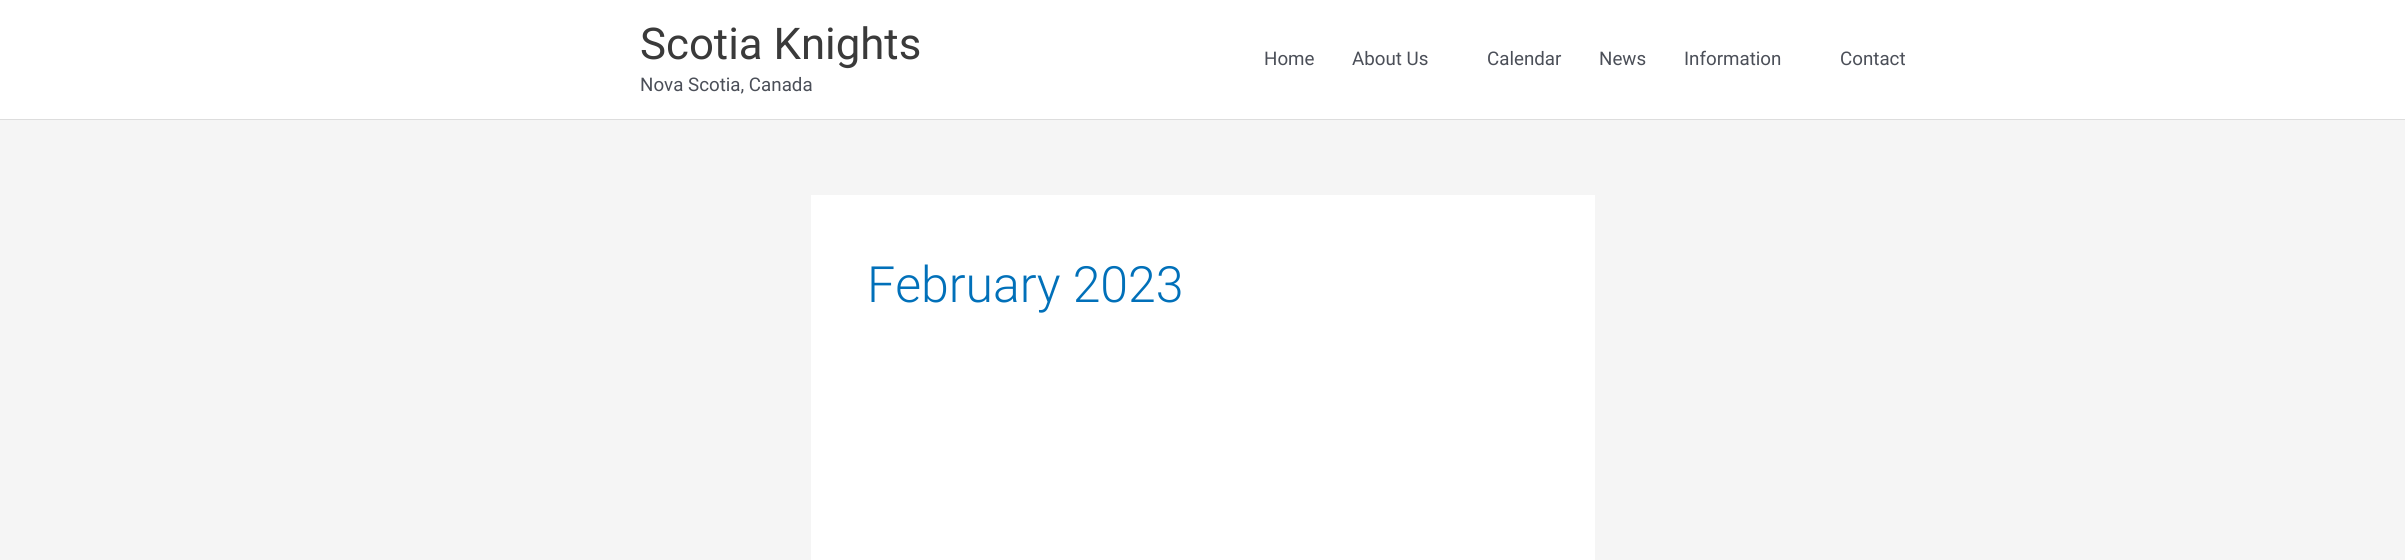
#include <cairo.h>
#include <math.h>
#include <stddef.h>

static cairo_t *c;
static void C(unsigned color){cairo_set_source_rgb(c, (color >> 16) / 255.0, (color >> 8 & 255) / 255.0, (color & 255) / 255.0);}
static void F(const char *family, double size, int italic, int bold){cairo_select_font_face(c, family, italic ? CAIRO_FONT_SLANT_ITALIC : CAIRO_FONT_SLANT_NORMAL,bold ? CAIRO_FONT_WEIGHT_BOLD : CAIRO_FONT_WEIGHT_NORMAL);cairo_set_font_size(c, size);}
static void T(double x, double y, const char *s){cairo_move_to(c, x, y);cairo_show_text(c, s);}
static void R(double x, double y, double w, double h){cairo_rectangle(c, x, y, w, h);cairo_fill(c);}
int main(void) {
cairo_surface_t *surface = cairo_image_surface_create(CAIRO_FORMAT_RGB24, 2405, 560);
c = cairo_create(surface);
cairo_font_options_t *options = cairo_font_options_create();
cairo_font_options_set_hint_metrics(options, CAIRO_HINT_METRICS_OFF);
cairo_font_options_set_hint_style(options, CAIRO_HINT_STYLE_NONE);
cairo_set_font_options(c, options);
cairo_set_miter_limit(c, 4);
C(0xf5f5f5);
cairo_paint(c);
C(0xffffff);
R(0,0,2405,119);
C(0xdddddd);
R(0,119,2405,1);
F("Roboto",43.75,0,0);
C(0x3a3a3a);
T(640,59,"Scotia Knights");
F("Roboto",18.75,0,0);
C(0x4b4f58);
T(640,91,"Nova Scotia, Canada");
T(1264,65,"Home");
T(1352,65,"About Us");
T(1487,65,"Calendar");
T(1599,65,"News");
T(1684,65,"Information");
T(1840,65,"Contact");
C(0xffffff);
R(811,195,784,365);
F("Roboto Light",50,0,0);
C(0x0170b9);
T(867,302,"February 2023");
cairo_surface_write_to_png(surface, "o.png");
cairo_font_options_destroy(options);
cairo_destroy(c);
cairo_surface_destroy(surface);
return 0;
}
